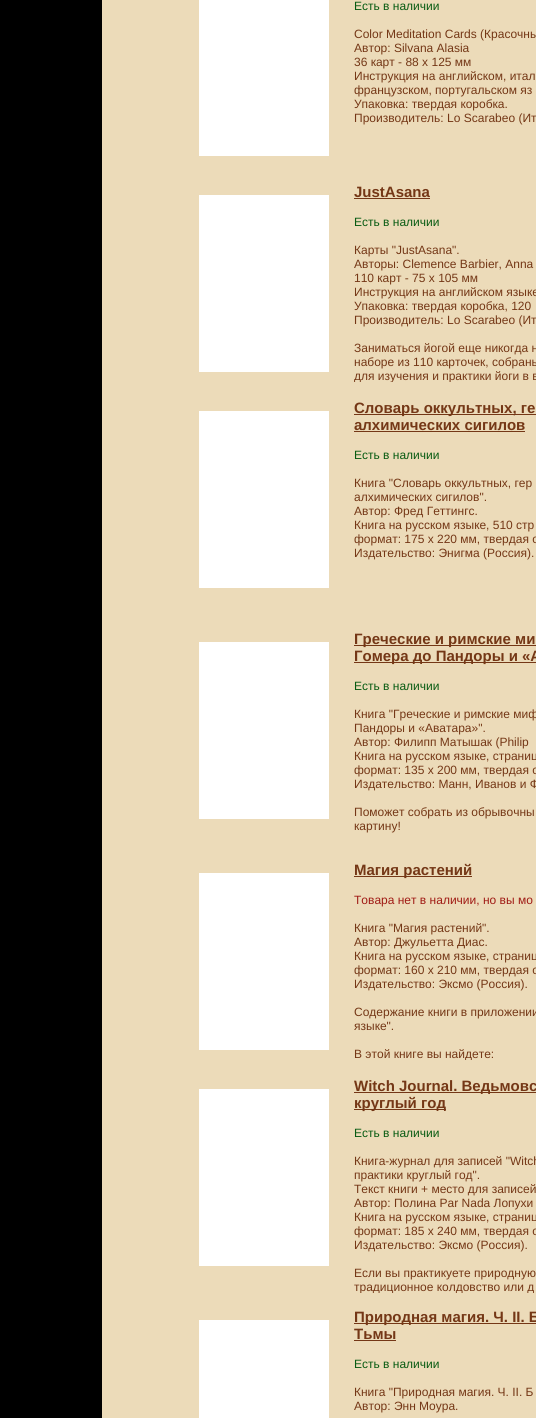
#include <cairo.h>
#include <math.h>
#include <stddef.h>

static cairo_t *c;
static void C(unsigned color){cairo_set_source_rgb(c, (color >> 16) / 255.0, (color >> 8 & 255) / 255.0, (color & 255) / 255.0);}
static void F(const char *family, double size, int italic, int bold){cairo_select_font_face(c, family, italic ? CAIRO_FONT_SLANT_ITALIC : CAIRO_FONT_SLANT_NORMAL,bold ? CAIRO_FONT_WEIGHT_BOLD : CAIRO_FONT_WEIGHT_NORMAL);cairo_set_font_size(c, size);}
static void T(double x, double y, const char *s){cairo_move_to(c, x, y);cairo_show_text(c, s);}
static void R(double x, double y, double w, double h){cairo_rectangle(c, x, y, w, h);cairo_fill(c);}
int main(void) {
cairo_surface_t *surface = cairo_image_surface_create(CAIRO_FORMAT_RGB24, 536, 1418);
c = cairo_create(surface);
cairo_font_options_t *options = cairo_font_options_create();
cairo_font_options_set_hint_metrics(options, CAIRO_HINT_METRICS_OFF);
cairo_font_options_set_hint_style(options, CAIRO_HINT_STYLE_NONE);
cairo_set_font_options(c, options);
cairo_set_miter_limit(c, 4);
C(0x000000);
cairo_paint(c);
C(0xecdbb9);
R(102,0,434,1418);
C(0xffffff);
R(199,0,130,156);
F("Liberation Sans",12,0,0);
C(0x085b12);
T(354,10,"Есть в наличии");
C(0x743716);
T(354,38,"Color Meditation Cards (Красочны");
T(354,52,"Автор: Silvana Alasia");
T(354,66,"36 карт - 88 х 125 мм");
T(354,80,"Инструкция на английском, итал");
T(354,94,"французском, португальском яз");
T(354,108,"Упаковка: твердая коробка.");
T(354,122,"Производитель: Lo Scarabeo (Ит");
C(0xffffff);
R(199,195,130,177);
F("Liberation Sans",15,0,1);
C(0x743716);
T(354,197,"JustAsana");
R(354,198,76,1);
F("Liberation Sans",12,0,0);
C(0x085b12);
T(354,226,"Есть в наличии");
C(0x743716);
T(354,254,"Карты \"JustAsana\".");
T(354,268,"Авторы: Clemence Barbier, Anna");
T(354,282,"110 карт - 75 х 105 мм");
T(354,296,"Инструкция на английском языке");
T(354,310,"Упаковка: твердая коробка, 120");
T(354,324,"Производитель: Lo Scarabeo (Ит");
T(354,352,"Заниматься йогой еще никогда н");
T(354,366,"наборе из 110 карточек, собраны");
cairo_save(c);
cairo_rectangle(c,354,215,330,167);
cairo_clip(c);
T(354,380,"для изучения и практики йоги в в");
cairo_restore(c);
C(0xffffff);
R(199,411,130,177);
C(0x743716);
R(354,414,182,1);
F("Liberation Sans",15,0,1);
T(354,413,"Словарь оккультных, ге");
T(354,430,"алхимических сигилов");
R(354,431,171,1);
F("Liberation Sans",12,0,0);
C(0x085b12);
T(354,459,"Есть в наличии");
C(0x743716);
T(354,487,"Книга \"Словарь оккультных, гер");
T(354,501,"алхимических сигилов\".");
T(354,515,"Автор: Фред Геттингс.");
T(354,529,"Книга на русском языке, 510 стр");
T(354,543,"формат: 175 х 220 мм, твердая о");
T(354,557,"Издательство: Энигма (Россия).");
C(0xffffff);
R(199,642,130,177);
C(0x743716);
R(354,645,182,1);
F("Liberation Sans",15,0,1);
T(354,644,"Греческие и римские ми");
R(354,662,182,1);
T(354,661,"Гомера до Пандоры и «А");
F("Liberation Sans",12,0,0);
C(0x085b12);
T(354,690,"Есть в наличии");
C(0x743716);
T(354,718,"Книга \"Греческие и римские миф");
T(354,732,"Пандоры и «Аватара»\".");
T(354,746,"Автор: Филипп Матышак (Philip");
T(354,760,"Книга на русском языке, страниц");
T(354,774,"формат: 135 х 200 мм, твердая о");
T(354,788,"Издательство: Манн, Иванов и Ф");
T(354,816,"Поможет собрать из обрывочны");
T(354,830,"картину!");
C(0xffffff);
R(199,873,130,177);
C(0x743716);
R(354,876,118,1);
F("Liberation Sans",15,0,1);
T(354,875,"Магия растений");
F("Liberation Sans",12,0,0);
C(0xa01b15);
T(354,904,"Товара нет в наличии, но вы мо");
C(0x743716);
T(354,932,"Книга \"Магия растений\".");
T(354,946,"Автор: Джульетта Диас.");
T(354,960,"Книга на русском языке, страниц");
T(354,974,"формат: 160 х 210 мм, твердая о");
T(354,988,"Издательство: Эксмо (Россия).");
T(354,1016,"Содержание книги в приложении");
T(354,1030,"языке\".");
cairo_save(c);
cairo_rectangle(c,354,893,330,167);
cairo_clip(c);
T(354,1058,"В этой книге вы найдете:");
cairo_restore(c);
C(0xffffff);
R(199,1089,130,177);
C(0x743716);
R(354,1092,182,1);
F("Liberation Sans",15,0,1);
T(354,1091,"Witch Journal. Ведьмовс");
R(354,1109,92,1);
T(354,1108,"круглый год");
F("Liberation Sans",12,0,0);
C(0x085b12);
T(354,1137,"Есть в наличии");
C(0x743716);
T(354,1165,"Книга-журнал для записей \"Witch");
T(354,1179,"практики круглый год\".");
T(354,1193,"Текст книги + место для записей");
T(354,1207,"Автор: Полина Par Nada Лопухи");
T(354,1221,"Книга на русском языке, страниц");
T(354,1235,"формат: 185 х 240 мм, твердая о");
T(354,1249,"Издательство: Эксмо (Россия).");
T(354,1277,"Если вы практикуете природную");
cairo_save(c);
cairo_rectangle(c,354,1126,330,167);
cairo_clip(c);
T(354,1291,"традиционное колдовство или д");
cairo_restore(c);
C(0xffffff);
R(199,1320,130,98);
C(0x743716);
R(354,1323,182,1);
F("Liberation Sans",15,0,1);
T(354,1322,"Природная магия. Ч. II. Б");
T(354,1339,"Тьмы");
R(354,1340,42,1);
F("Liberation Sans",12,0,0);
C(0x085b12);
T(354,1368,"Есть в наличии");
C(0x743716);
T(354,1396,"Книга \"Природная магия. Ч. II. Б");
T(354,1410,"Автор: Энн Моура.");
cairo_surface_write_to_png(surface, "o.png");
cairo_font_options_destroy(options);
cairo_destroy(c);
cairo_surface_destroy(surface);
return 0;
}
